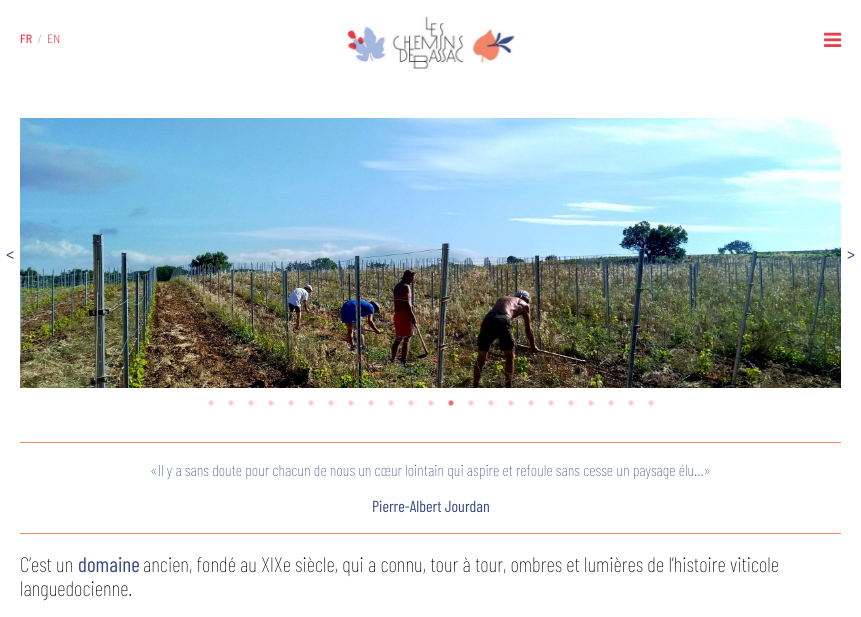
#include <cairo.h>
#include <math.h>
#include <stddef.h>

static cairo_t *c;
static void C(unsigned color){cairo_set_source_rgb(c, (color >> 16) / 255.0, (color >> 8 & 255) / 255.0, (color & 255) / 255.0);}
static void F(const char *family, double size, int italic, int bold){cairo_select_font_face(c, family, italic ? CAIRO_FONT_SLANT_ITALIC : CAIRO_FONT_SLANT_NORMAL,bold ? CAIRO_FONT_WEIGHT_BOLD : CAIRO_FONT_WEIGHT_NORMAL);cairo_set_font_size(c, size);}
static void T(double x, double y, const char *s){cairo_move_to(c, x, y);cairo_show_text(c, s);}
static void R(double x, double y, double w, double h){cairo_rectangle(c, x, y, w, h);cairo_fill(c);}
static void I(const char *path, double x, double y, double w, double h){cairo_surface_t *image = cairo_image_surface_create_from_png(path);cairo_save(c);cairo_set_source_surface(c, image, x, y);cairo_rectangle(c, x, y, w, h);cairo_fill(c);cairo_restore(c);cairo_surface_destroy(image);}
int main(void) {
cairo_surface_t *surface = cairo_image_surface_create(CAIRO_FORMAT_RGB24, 861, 617);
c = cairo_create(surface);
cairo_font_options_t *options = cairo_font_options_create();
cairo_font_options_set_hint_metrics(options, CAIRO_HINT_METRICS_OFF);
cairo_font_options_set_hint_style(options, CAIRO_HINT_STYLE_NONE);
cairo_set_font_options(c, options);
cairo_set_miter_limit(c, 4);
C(0xffffff);
cairo_paint(c);
F("Barlow Semi Condensed Medium",12,0,0);
C(0xe93d4b);
T(20,43,"FR");
F("Barlow Semi Condensed Thin",12,0,0);
T(38,43,"/");
F("Barlow Semi Condensed Light",12,0,0);
T(47,43,"EN");
I("1.png",346,16,169,54);
I("2.png",824,32,18,15);
F("Barlow Condensed",18,0,0);
C(0x374a82);
T(6,260,"<");
I("3.png",20,118,821,270);
T(847,260,">");
I("4.png",208,400,6,6);
I("4.png",228,400,6,6);
I("4.png",248,400,6,6);
I("4.png",268,400,6,6);
I("4.png",288,400,6,6);
I("4.png",308,400,6,6);
I("4.png",328,400,6,6);
I("4.png",348,400,6,6);
I("4.png",368,400,6,6);
I("4.png",388,400,6,6);
I("4.png",408,400,6,6);
I("4.png",428,400,6,6);
I("5.png",448,400,6,6);
I("4.png",468,400,6,6);
I("4.png",488,400,6,6);
I("4.png",508,400,6,6);
I("4.png",528,400,6,6);
I("4.png",548,400,6,6);
I("4.png",568,400,6,6);
I("4.png",588,400,6,6);
I("4.png",608,400,6,6);
I("4.png",628,400,6,6);
I("4.png",648,400,6,6);
C(0xf38669);
R(20,442,821,1);
R(20,533,821,1);
F("Barlow Condensed Thin",16,0,0);
C(0x374a82);
T(150,476,"«Il y a sans doute pour chacun de nous un cœur lointain qui aspire et refoule sans cesse un paysage élu…»");
F("Barlow Condensed",16,0,0);
T(372,512,"Pierre-Albert Jourdan");
F("Barlow Condensed Thin",21,0,0);
C(0x000000);
T(20,572,"C’est un");
F("Barlow Condensed",21,0,0);
C(0x374a82);
T(78,572,"domaine");
F("Barlow Condensed Thin",21,0,0);
C(0x000000);
T(143,572,"ancien, fondé au XIXe siècle, qui a connu, tour à tour, ombres et lumières de l’histoire viticole");
T(20,596,"languedocienne.");
cairo_surface_write_to_png(surface, "o.png");
cairo_font_options_destroy(options);
cairo_destroy(c);
cairo_surface_destroy(surface);
return 0;
}
